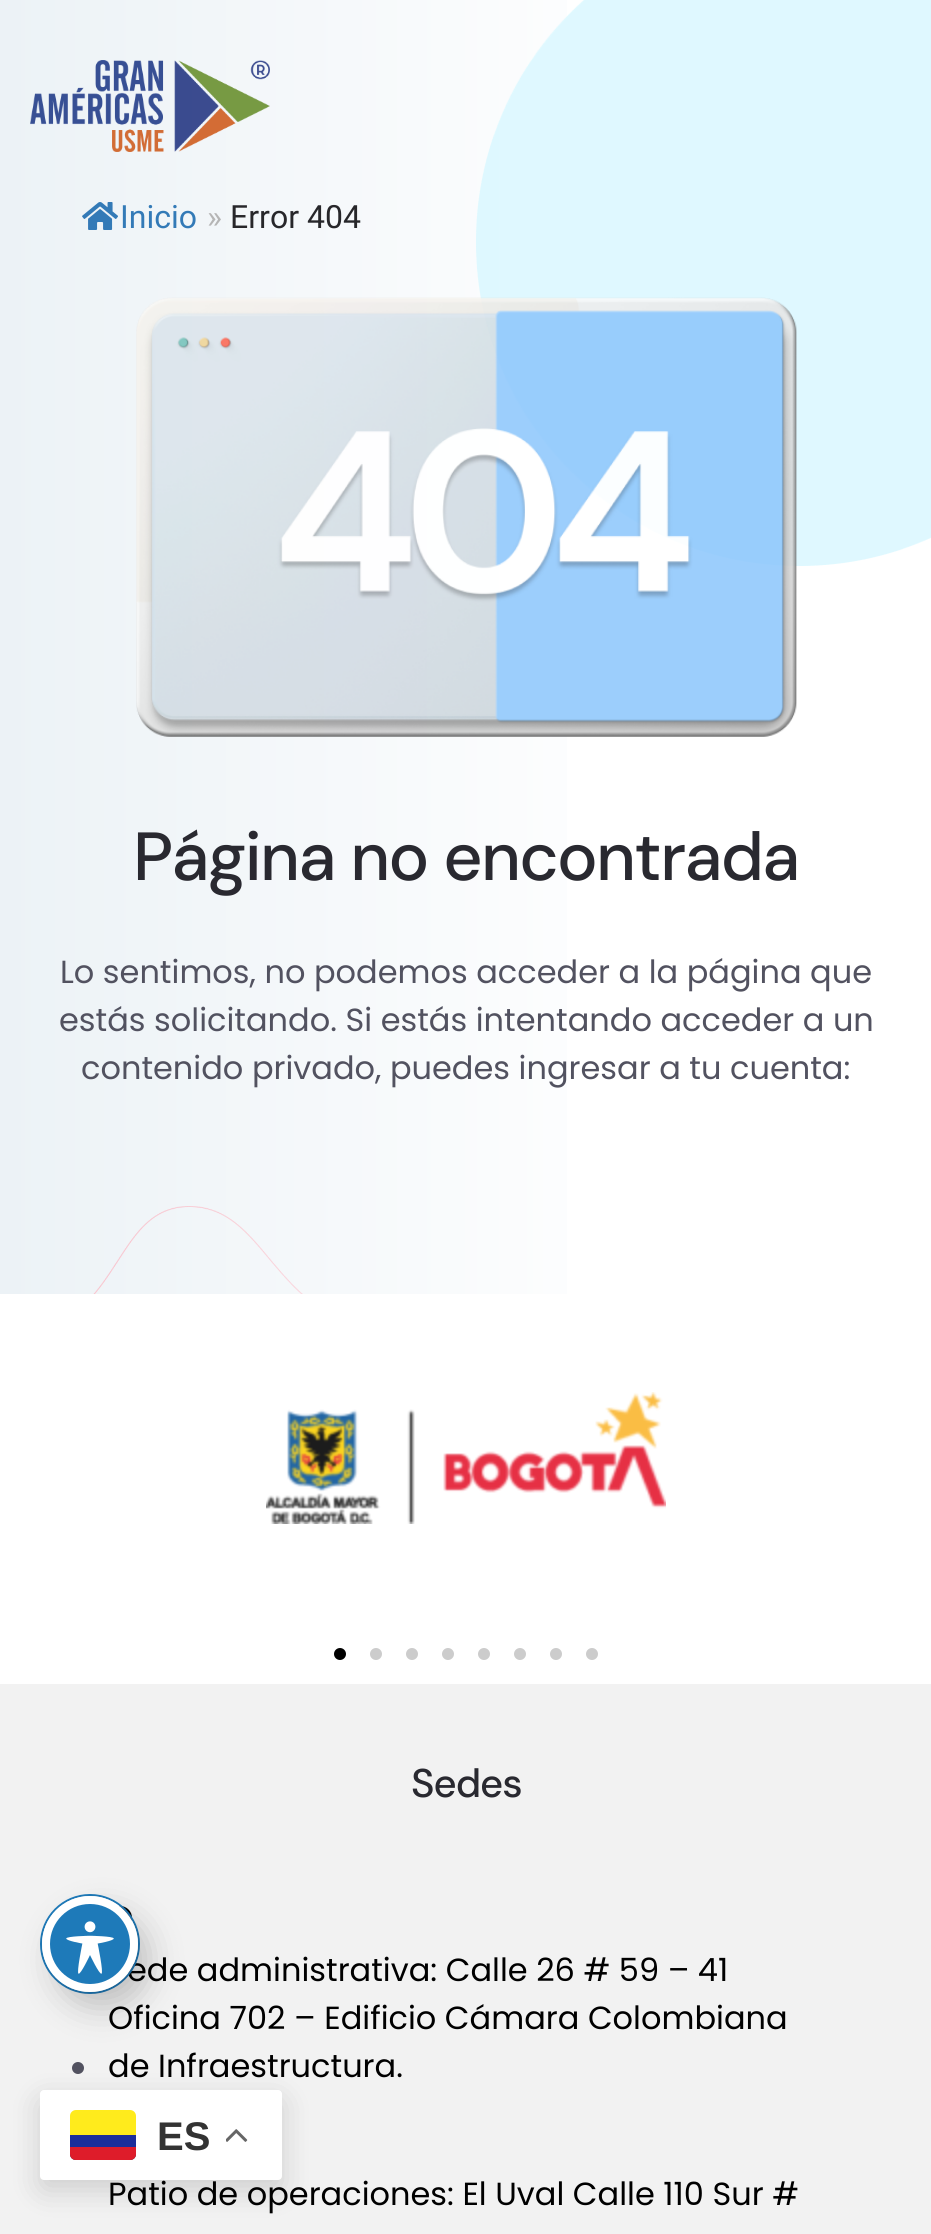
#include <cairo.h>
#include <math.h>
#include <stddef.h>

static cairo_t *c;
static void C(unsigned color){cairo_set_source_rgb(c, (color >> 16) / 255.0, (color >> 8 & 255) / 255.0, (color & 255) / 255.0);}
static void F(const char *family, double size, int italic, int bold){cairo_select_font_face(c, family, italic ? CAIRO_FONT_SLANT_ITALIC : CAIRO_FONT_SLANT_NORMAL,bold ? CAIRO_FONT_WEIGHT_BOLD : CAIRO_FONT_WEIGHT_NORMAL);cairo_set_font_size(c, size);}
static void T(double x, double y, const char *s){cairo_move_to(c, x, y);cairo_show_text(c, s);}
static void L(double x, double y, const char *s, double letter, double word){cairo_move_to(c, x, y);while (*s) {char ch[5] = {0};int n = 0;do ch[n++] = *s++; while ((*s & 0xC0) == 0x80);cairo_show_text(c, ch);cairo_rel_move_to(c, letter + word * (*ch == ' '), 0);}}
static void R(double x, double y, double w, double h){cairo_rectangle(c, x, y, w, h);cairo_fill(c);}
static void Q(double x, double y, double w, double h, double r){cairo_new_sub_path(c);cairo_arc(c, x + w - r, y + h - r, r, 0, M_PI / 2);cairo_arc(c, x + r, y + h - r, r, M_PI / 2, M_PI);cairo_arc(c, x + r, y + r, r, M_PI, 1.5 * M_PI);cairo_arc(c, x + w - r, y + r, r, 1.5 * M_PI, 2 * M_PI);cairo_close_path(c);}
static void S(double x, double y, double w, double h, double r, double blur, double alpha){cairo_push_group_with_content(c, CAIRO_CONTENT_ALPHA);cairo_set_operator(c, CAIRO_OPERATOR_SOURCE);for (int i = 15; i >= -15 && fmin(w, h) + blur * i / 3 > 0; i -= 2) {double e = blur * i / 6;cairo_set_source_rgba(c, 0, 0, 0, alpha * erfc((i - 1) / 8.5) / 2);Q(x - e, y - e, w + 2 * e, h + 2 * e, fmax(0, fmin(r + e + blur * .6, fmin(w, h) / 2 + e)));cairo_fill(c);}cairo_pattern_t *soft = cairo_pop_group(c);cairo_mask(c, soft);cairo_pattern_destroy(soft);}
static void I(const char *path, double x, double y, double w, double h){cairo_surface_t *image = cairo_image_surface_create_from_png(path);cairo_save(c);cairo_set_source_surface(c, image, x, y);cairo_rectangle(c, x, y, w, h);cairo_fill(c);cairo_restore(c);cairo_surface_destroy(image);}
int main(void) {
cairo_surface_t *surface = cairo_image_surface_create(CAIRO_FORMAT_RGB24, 931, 2234);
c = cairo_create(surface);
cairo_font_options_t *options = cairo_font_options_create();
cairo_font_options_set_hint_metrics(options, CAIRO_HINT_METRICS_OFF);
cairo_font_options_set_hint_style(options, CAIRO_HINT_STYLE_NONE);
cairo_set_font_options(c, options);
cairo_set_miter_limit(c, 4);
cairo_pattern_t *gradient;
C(0xffffff);
cairo_paint(c);
gradient = cairo_pattern_create_linear(0,647,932,647);
cairo_pattern_add_color_stop_rgba(gradient,0,0.925,0.949,0.965,1);
cairo_pattern_add_color_stop_rgba(gradient,.7,1,1,1,1);
cairo_set_source(c,gradient);
cairo_pattern_destroy(gradient);
R(0,0,567,1294);
I("1.png",30,60,240,92);
I("2.png",82,202,36,28);
F("Roboto",32,0,0);
C(0x337ab7);
T(120,228,"Inicio");
C(0xb5b5b5);
T(207,228,"»");
C(0x27272a);
T(230,228,"Error 404");
I("3.png",476,0,455,566);
I("4.png",93,1206,210,88);
I("5.png",136,297,661,440);
F("DM Sans Medium",68,0,0);
C(0x292930);
L(133,880,"Página no encontrada",-1.7,0);
F("Poppins",32,0,0);
C(0x525260);
T(60,983,"Lo sentimos, no podemos acceder a la página que");
T(59,1031,"estás solicitando. Si estás intentando acceder a un");
T(81,1079,"contenido privado, puedes ingresar a tu cuenta:");
I("6.png",266,1392,400,132);
C(0x000000);
cairo_arc(c,340,1654,6,0,2 * M_PI);
cairo_fill(c);
C(0xcccccc);
cairo_arc(c,376,1654,6,0,2 * M_PI);
cairo_fill(c);
cairo_arc(c,412,1654,6,0,2 * M_PI);
cairo_fill(c);
cairo_arc(c,448,1654,6,0,2 * M_PI);
cairo_fill(c);
cairo_arc(c,484,1654,6,0,2 * M_PI);
cairo_fill(c);
cairo_arc(c,520,1654,6,0,2 * M_PI);
cairo_fill(c);
cairo_arc(c,556,1654,6,0,2 * M_PI);
cairo_fill(c);
cairo_arc(c,592,1654,6,0,2 * M_PI);
cairo_fill(c);
C(0xf2f2f2);
R(0,1684,931,550);
F("DM Sans Medium",40,0,0);
C(0x292930);
L(411,1797,"Sedes",-1,0);
C(0x525260);
cairo_new_path(c);
cairo_arc(c,78,2068,6,0,2 * M_PI);
cairo_fill(c);
I("7.png",119,1906,13,15);
F("Poppins",32,0,0);
C(0x000000);
T(127,1981,"ede administrativa: Calle 26 # 59 – 41");
T(108,2029,"Oficina 702 – Edificio Cámara Colombiana");
T(108,2077,"de Infraestructura.");
T(108,2205,"Patio de operaciones: El Uval Calle 110 Sur #");
cairo_new_path(c);
cairo_arc(c,90,1944,49,0,2 * M_PI);
C(0x1e7ab9);
cairo_stroke(c);
C(0x000000);
S(54,1912,96,96,48,16,.2);
C(0x1e7ab9);
cairo_arc(c,90,1944,44,0,2 * M_PI);
cairo_fill_preserve(c);
C(0xffffff);
cairo_set_line_width(c,8);
cairo_stroke(c);
I("8.png",66,1921,48,53);
C(0x000000);
S(40,2100,242,90,4,15,.15);
C(0xffffff);
Q(40,2090,242,90,4);
cairo_fill(c);
C(0xffeb1c);
Q(70,2110,66,50,6);
cairo_fill(c);
C(0x1c2e9a);
cairo_new_path(c);
cairo_move_to(c,70,2135);
cairo_line_to(c,136,2135);
cairo_line_to(c,136,2154);
cairo_curve_to(c,136,2157.5,133.5,2160,130,2160);
cairo_line_to(c,76,2160);
cairo_curve_to(c,72.5,2160,70,2157.5,70,2154);
cairo_close_path(c);
cairo_fill(c);
C(0xde1c2a);
cairo_new_path(c);
cairo_move_to(c,70,2147);
cairo_line_to(c,136,2147);
cairo_line_to(c,136,2154);
cairo_curve_to(c,136,2157.5,133.5,2160,130,2160);
cairo_line_to(c,76,2160);
cairo_curve_to(c,72.5,2160,70,2157.5,70,2154);
cairo_close_path(c);
cairo_fill(c);
F("Liberation Sans",40,0,1);
C(0x333333);
T(157,2150,"ES");
I("9.png",226,2129,22,13);
cairo_surface_write_to_png(surface, "o.png");
cairo_font_options_destroy(options);
cairo_destroy(c);
cairo_surface_destroy(surface);
return 0;
}
